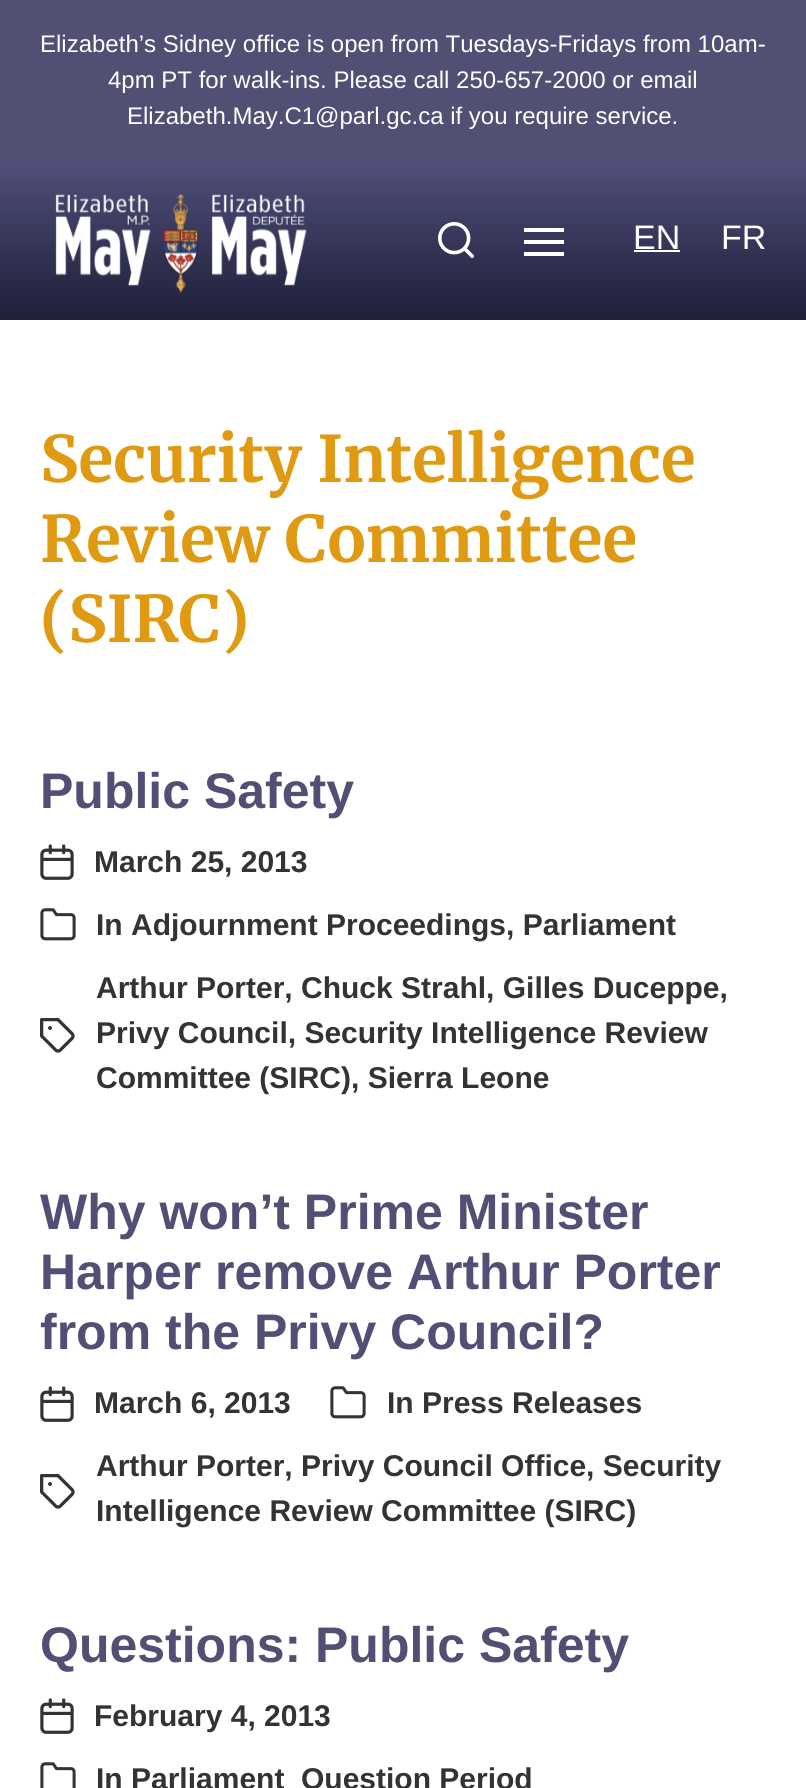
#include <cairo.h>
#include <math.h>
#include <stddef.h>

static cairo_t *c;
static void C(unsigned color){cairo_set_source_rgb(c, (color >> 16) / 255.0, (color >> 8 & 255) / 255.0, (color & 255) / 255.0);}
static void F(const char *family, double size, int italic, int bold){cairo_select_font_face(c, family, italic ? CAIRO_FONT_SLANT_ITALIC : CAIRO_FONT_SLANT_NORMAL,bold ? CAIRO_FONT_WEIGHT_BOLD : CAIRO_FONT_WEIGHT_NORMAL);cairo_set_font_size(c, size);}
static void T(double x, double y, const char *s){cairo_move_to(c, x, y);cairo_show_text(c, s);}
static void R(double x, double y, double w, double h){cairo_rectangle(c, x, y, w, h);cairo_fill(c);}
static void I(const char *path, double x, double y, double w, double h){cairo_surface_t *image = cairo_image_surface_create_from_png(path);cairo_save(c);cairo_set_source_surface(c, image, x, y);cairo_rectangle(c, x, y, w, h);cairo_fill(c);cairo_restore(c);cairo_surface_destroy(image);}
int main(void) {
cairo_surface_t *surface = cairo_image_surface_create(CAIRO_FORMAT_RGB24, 806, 1788);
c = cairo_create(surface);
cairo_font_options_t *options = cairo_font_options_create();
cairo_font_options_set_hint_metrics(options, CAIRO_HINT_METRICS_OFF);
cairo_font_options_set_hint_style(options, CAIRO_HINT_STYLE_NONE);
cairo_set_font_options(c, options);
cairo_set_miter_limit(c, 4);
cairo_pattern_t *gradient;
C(0xffffff);
cairo_paint(c);
C(0x514f74);
R(0,0,806,160);
F("Liberation Sans",24,0,0);
C(0xffffff);
T(40,52,"Elizabeth’s Sidney office is open from Tuesdays-Fridays from 10am-");
T(108,88,"4pm PT for walk-ins. Please call 250-657-2000 or email");
T(127,124,"Elizabeth.May.C1@parl.gc.ca if you require service.");
gradient = cairo_pattern_create_linear(403,160,403,320);
cairo_pattern_add_color_stop_rgba(gradient,0,0.314,0.314,0.482,1);
cairo_pattern_add_color_stop_rgba(gradient,.25,0.263,0.263,0.416,1);
cairo_pattern_add_color_stop_rgba(gradient,.5,0.212,0.216,0.349,1);
cairo_pattern_add_color_stop_rgba(gradient,.75,0.165,0.169,0.286,1);
cairo_pattern_add_color_stop_rgba(gradient,1,0.118,0.125,0.224,1);
cairo_set_source(c,gradient);
cairo_pattern_destroy(gradient);
R(0,160,806,160);
I("1.png",55,193,252,100);
I("2.png",438,222,36,36);
C(0xffffff);
R(524,228,40,4);
R(524,240,40,4);
R(524,252,40,4);
F("Liberation Sans",34,0,0);
T(633,249,"EN");
R(634,250,46,2);
T(721,249,"FR");
F("Merriweather",64,0,1);
C(0xdf9a12);
T(40,482,"Security Intelligence");
T(40,562,"Review Committee");
T(40,642,"(SIRC)");
F("Liberation Sans",50,0,1);
C(0x514f74);
T(40,808,"Public Safety");
I("3.png",40,844,34,36);
F("Liberation Sans",30,0,1);
C(0x333333);
T(94,872,"March 25, 2013");
I("4.png",40,908,36,33);
T(96,935,"In Adjournment Proceedings, Parliament");
I("5.png",40,1018,35,35);
T(96,998,"Arthur Porter, Chuck Strahl, Gilles Duceppe,");
T(96,1043,"Privy Council, Security Intelligence Review");
T(96,1088,"Committee (SIRC), Sierra Leone");
F("Liberation Sans",50,0,1);
C(0x514f74);
T(40,1229,"Why won’t Prime Minister");
T(40,1289,"Harper remove Arthur Porter");
T(40,1349,"from the Privy Council?");
I("3.png",40,1386,34,36);
F("Liberation Sans",30,0,1);
C(0x333333);
T(94,1413,"March 6, 2013");
I("4.png",330,1386,36,33);
T(387,1413,"In Press Releases");
I("5.png",40,1474,35,35);
T(96,1476,"Arthur Porter, Privy Council Office, Security");
T(96,1521,"Intelligence Review Committee (SIRC)");
F("Liberation Sans",50,0,1);
C(0x514f74);
T(40,1662,"Questions: Public Safety");
I("3.png",40,1698,34,36);
F("Liberation Sans",30,0,1);
C(0x333333);
T(94,1726,"February 4, 2013");
I("6.png",40,1762,36,26);
T(96,1789,"In Parliament");
T(301,1789,"Question Period");
cairo_surface_write_to_png(surface, "o.png");
cairo_font_options_destroy(options);
cairo_destroy(c);
cairo_surface_destroy(surface);
return 0;
}
